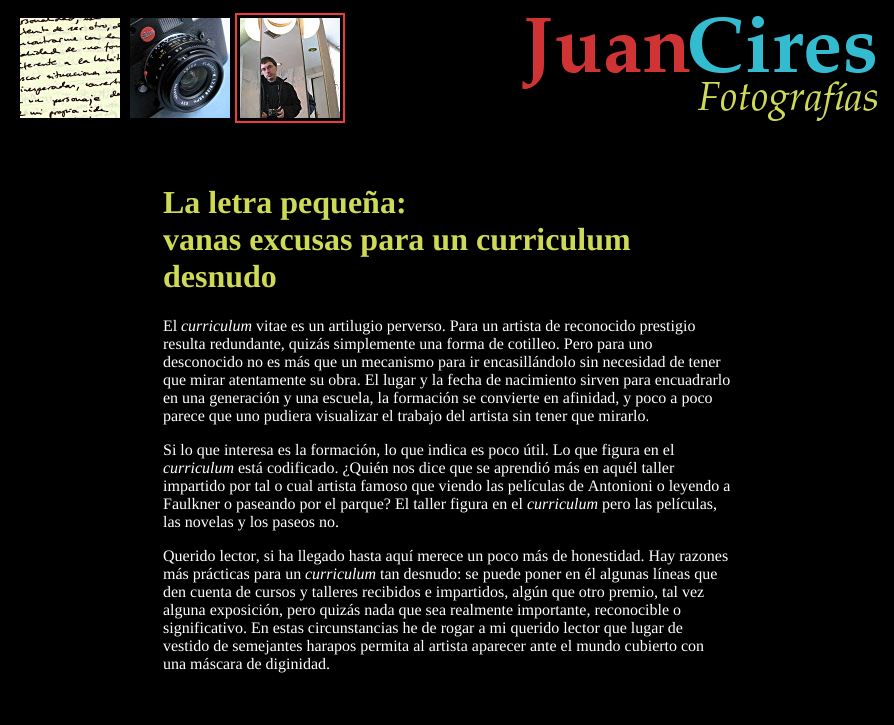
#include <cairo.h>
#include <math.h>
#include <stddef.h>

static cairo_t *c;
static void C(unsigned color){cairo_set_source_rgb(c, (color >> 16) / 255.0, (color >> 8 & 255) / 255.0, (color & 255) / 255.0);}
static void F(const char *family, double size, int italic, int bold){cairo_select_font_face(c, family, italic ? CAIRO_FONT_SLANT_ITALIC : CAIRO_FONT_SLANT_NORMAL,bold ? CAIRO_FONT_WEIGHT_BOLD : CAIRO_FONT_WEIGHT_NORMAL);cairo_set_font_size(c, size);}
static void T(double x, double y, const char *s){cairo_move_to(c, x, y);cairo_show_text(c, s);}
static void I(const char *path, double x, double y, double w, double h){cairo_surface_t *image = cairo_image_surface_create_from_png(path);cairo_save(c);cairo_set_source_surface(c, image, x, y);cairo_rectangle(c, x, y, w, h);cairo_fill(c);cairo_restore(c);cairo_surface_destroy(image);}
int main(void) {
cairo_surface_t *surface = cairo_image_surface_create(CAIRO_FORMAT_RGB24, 894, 725);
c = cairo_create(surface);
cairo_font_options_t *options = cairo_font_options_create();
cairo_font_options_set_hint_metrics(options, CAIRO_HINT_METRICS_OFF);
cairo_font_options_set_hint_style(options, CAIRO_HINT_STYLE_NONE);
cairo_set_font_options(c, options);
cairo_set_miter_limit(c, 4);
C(0x000000);
cairo_paint(c);
I("1.png",20,18,100,100);
I("2.png",130,18,100,100);
cairo_rectangle(c,236,14,108,108);
C(0xec3c3c);
cairo_stroke(c);
I("3.png",240,18,100,100);
I("4.png",522,16,355,105);
F("Liberation Serif",32,0,1);
C(0xced956);
T(163,213,"La letra pequeña:");
T(163,250,"vanas excusas para un curriculum");
T(163,287,"desnudo");
F("Liberation Serif",16,0,0);
C(0xffffff);
T(163,331,"El");
F("Liberation Serif",16,1,0);
T(181,331,"curriculum");
F("Liberation Serif",16,0,0);
T(256,331,"vitae es un artilugio perverso. Para un artista de reconocido prestigio");
T(163,349,"resulta redundante, quizás simplemente una forma de cotilleo. Pero para uno");
T(163,367,"desconocido no es más que un mecanismo para ir encasillándolo sin necesidad de tener");
T(163,385,"que mirar atentamente su obra. El lugar y la fecha de nacimiento sirven para encuadrarlo");
T(163,403,"en una generación y una escuela, la formación se convierte en afinidad, y poco a poco");
T(163,421,"parece que uno pudiera visualizar el trabajo del artista sin tener que mirarlo.");
T(163,455,"Si lo que interesa es la formación, lo que indica es poco útil. Lo que figura en el");
F("Liberation Serif",16,1,0);
T(163,473,"curriculum");
F("Liberation Serif",16,0,0);
T(238,473,"está codificado. ¿Quién nos dice que se aprendió más en aquél taller");
T(163,491,"impartido por tal o cual artista famoso que viendo las películas de Antonioni o leyendo a");
T(163,509,"Faulkner o paseando por el parque? El taller figura en el");
F("Liberation Serif",16,1,0);
T(527,509,"curriculum");
F("Liberation Serif",16,0,0);
T(602,509,"pero las películas,");
T(163,527,"las novelas y los paseos no.");
T(163,561,"Querido lector, si ha llegado hasta aquí merece un poco más de honestidad. Hay razones");
T(163,579,"más prácticas para un");
F("Liberation Serif",16,1,0);
T(305,579,"curriculum");
F("Liberation Serif",16,0,0);
T(380,579,"tan desnudo: se puede poner en él algunas líneas que");
T(163,597,"den cuenta de cursos y talleres recibidos e impartidos, algún que otro premio, tal vez");
T(163,615,"alguna exposición, pero quizás nada que sea realmente importante, reconocible o");
T(163,633,"significativo. En estas circunstancias he de rogar a mi querido lector que lugar de");
T(163,651,"vestido de semejantes harapos permita al artista aparecer ante el mundo cubierto con");
T(163,669,"una máscara de diginidad.");
cairo_surface_write_to_png(surface, "o.png");
cairo_font_options_destroy(options);
cairo_destroy(c);
cairo_surface_destroy(surface);
return 0;
}
